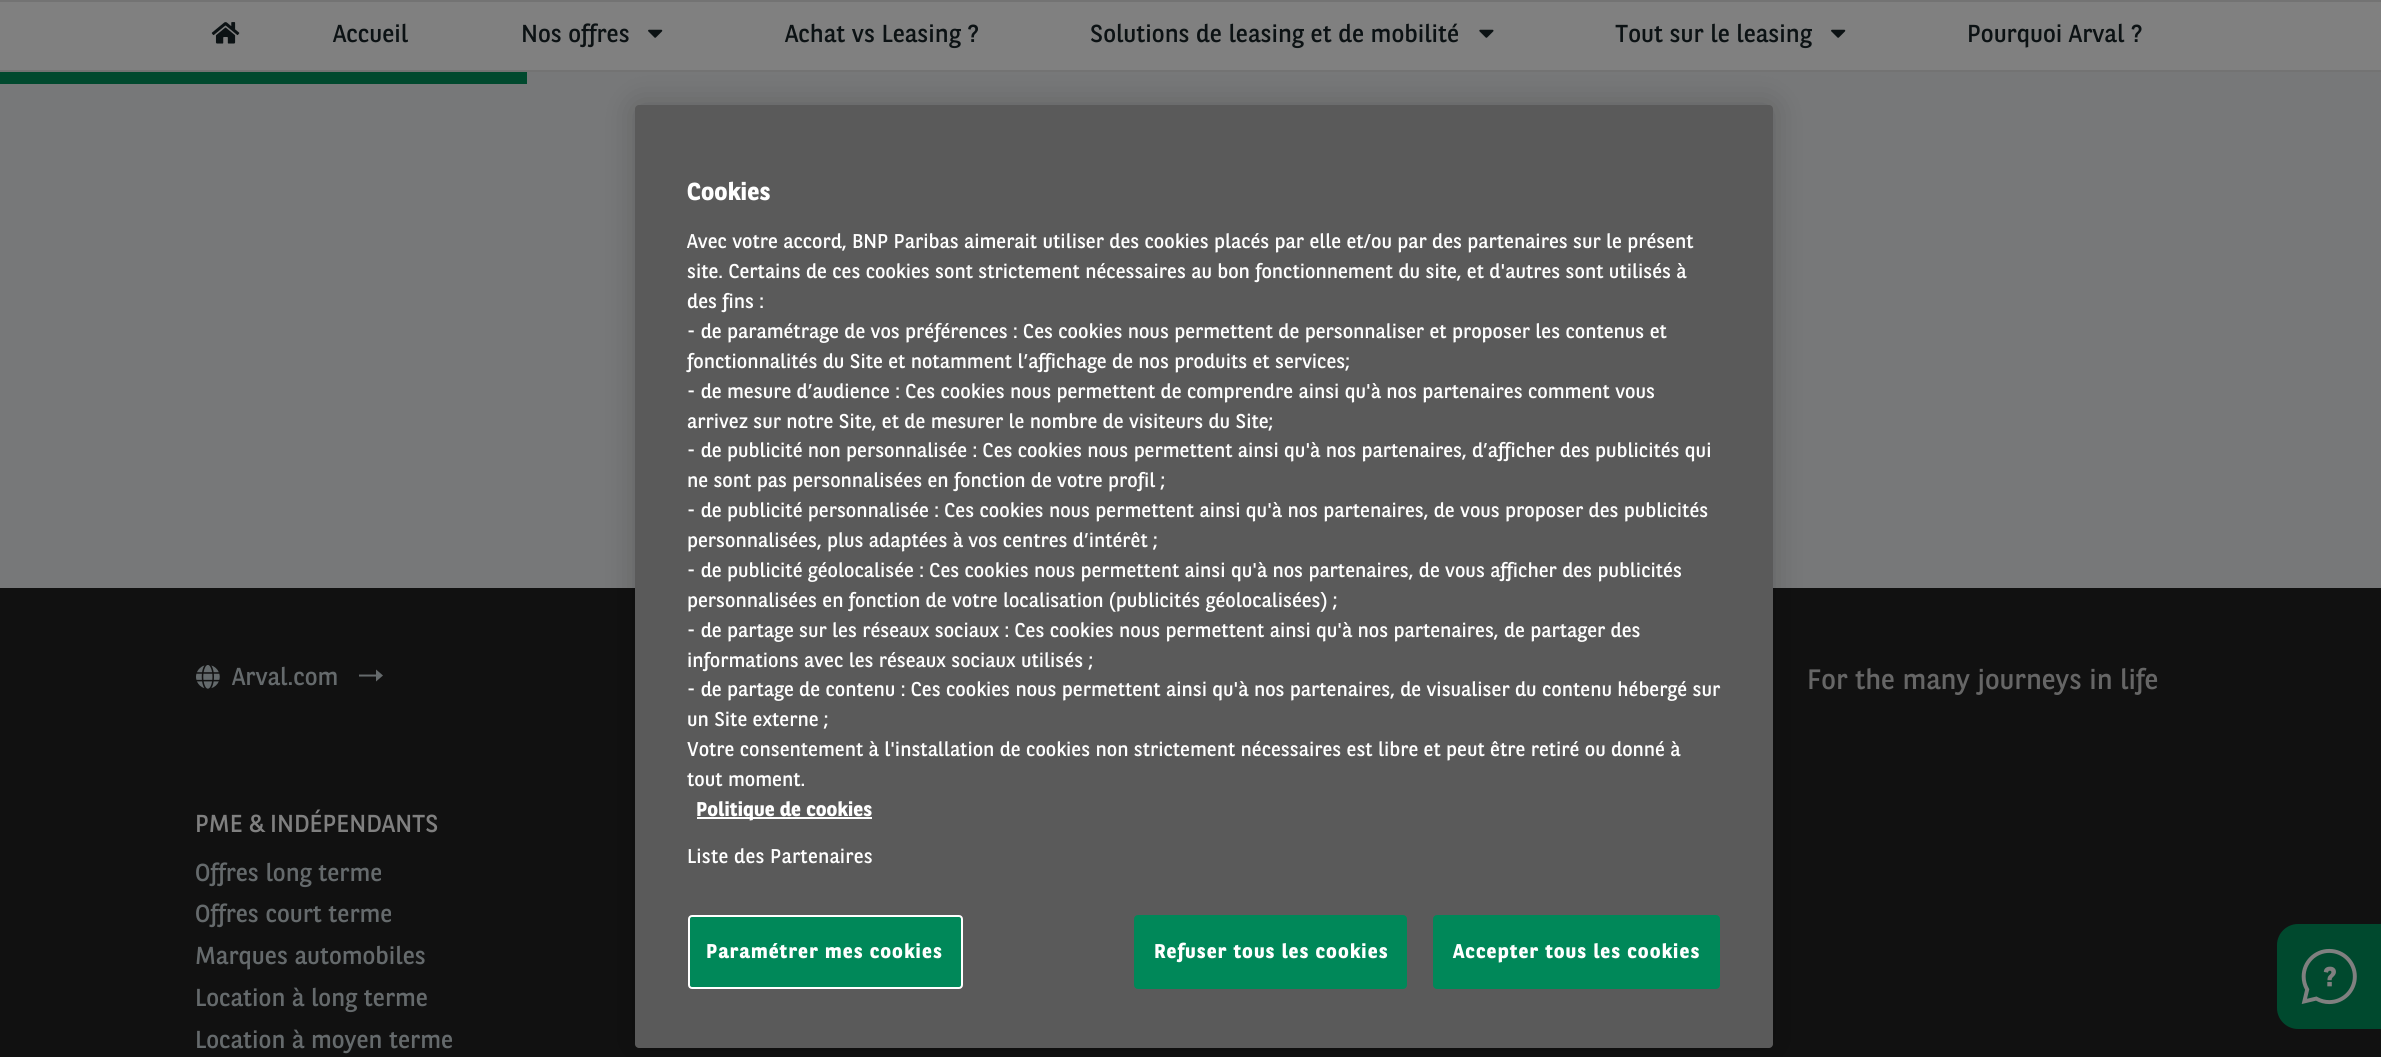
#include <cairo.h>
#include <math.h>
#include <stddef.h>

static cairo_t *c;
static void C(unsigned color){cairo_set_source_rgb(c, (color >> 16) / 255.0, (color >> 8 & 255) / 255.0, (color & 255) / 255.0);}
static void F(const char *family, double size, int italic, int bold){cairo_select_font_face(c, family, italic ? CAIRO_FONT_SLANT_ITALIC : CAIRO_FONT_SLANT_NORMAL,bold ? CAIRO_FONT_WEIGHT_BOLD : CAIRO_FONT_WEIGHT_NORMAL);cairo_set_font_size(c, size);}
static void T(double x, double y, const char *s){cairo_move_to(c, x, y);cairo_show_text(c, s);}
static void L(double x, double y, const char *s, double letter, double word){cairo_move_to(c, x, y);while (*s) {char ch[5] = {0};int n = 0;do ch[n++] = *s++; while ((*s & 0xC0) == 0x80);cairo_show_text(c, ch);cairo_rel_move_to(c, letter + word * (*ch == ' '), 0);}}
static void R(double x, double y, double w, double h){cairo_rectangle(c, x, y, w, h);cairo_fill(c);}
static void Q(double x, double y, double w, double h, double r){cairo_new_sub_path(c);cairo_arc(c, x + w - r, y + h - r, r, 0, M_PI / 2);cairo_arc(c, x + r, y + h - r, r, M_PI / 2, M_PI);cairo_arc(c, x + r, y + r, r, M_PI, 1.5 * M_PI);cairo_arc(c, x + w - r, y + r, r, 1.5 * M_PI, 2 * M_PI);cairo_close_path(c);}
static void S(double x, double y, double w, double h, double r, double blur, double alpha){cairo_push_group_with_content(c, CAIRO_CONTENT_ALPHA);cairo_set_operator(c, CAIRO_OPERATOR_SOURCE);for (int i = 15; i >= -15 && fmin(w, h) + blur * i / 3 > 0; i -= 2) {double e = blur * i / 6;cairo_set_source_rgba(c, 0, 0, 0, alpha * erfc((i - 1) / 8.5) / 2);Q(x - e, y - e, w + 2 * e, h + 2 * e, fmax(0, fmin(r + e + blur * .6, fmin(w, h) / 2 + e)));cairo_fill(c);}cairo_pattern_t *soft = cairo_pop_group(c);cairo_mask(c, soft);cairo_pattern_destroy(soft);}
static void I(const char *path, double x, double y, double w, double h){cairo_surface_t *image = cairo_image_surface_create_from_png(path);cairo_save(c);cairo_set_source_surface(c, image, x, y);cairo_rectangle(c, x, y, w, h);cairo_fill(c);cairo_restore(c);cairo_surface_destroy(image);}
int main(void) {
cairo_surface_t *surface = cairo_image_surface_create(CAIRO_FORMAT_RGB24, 2381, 1057);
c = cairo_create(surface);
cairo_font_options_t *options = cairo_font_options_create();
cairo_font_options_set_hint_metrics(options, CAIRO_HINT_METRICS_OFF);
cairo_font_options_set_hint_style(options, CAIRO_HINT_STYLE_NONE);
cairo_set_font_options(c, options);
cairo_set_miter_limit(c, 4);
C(0x777879);
cairo_paint(c);
C(0x737373);
R(0,0,2381,2);
C(0x808080);
R(0,2,2381,68);
C(0x737373);
R(0,70,2381,2);
I("1.png",211,22,29,22);
F("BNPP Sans",24.5,0,0);
C(0x0c1214);
T(333,42,"Accueil");
T(521,42,"Nos offres");
I("2.png",648,29,15,9);
T(785,42,"Achat vs Leasing ?");
T(1090,42,"Solutions de leasing et de mobilité");
I("3.png",1479,29,15,9);
T(1615,42,"Tout sur le leasing");
I("2.png",1831,29,15,9);
T(1967,42,"Pourquoi Arval ?");
C(0x00492e);
R(0,72,527,12);
C(0x111111);
R(0,588,2381,469);
I("4.png",196,665,24,24);
C(0x656a6c);
T(232,685,"Arval.com");
cairo_new_path(c);
cairo_move_to(c,376,676.5);
cairo_line_to(c,359,676.5);
cairo_line_to(c,359,674.5);
cairo_line_to(c,376,674.5);
cairo_line_to(c,376,669.5);
cairo_line_to(c,383,675.5);
cairo_line_to(c,376,681.5);
cairo_close_path(c);
cairo_fill(c);
F("BNPP Sans",28,0,0);
C(0x666666);
T(1807,689,"For the many journeys in life");
F("BNPP Sans",24.5,0,0);
C(0x808080);
T(195,832,"PME & INDÉPENDANTS");
C(0x656a6c);
T(195,881,"Offres long terme");
T(195,922,"Offres court terme");
T(195,964,"Marques automobiles");
T(195,1006,"Location à long terme");
T(195,1048,"Location à moyen terme");
C(0x00492e);
cairo_new_path(c);
cairo_move_to(c,2298,924);
cairo_line_to(c,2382,924);
cairo_line_to(c,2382,1029);
cairo_line_to(c,2298,1029);
cairo_curve_to(c,2286.5,1029,2277,1019.5,2277,1008);
cairo_line_to(c,2277,945);
cairo_curve_to(c,2277,933.5,2286.5,924,2298,924);
cairo_close_path(c);
cairo_fill(c);
I("5.png",2301,948,56,57);
C(0x000000);
S(635,105,1138,943,4,16,.2);
C(0x5a5a5a);
Q(635,105,1138,943,4);
cairo_fill(c);
F("BNPP Sans",24.5,0,1);
C(0xffffff);
T(687,200,"Cookies");
F("BNPP Sans",19.92,0,0);
T(687,248,"Avec votre accord, BNP Paribas aimerait utiliser des cookies placés par elle et/ou par des partenaires sur le présent");
T(687,278,"site. Certains de ces cookies sont strictement nécessaires au bon fonctionnement du site, et d'autres sont utilisés à");
T(687,308,"des fins :");
T(687,338,"- de paramétrage de vos préférences : Ces cookies nous permettent de personnaliser et proposer les contenus et");
T(687,368,"fonctionnalités du Site et notamment l’affichage de nos produits et services;");
T(687,398,"- de mesure d’audience : Ces cookies nous permettent de comprendre ainsi qu'à nos partenaires comment vous");
T(687,428,"arrivez sur notre Site, et de mesurer le nombre de visiteurs du Site;");
T(687,457,"- de publicité non personnalisée : Ces cookies nous permettent ainsi qu'à nos partenaires, d’afficher des publicités qui");
T(687,487,"ne sont pas personnalisées en fonction de votre profil ;");
T(687,517,"- de publicité personnalisée : Ces cookies nous permettent ainsi qu'à nos partenaires, de vous proposer des publicités");
T(687,547,"personnalisées, plus adaptées à vos centres d’intérêt ;");
T(687,577,"- de publicité géolocalisée : Ces cookies nous permettent ainsi qu'à nos partenaires, de vous afficher des publicités");
T(687,607,"personnalisées en fonction de votre localisation (publicités géolocalisées) ;");
T(687,637,"- de partage sur les réseaux sociaux : Ces cookies nous permettent ainsi qu'à nos partenaires, de partager des");
T(687,667,"informations avec les réseaux sociaux utilisés ;");
T(687,696,"- de partage de contenu : Ces cookies nous permettent ainsi qu'à nos partenaires, de visualiser du contenu hébergé sur");
T(687,726,"un Site externe ;");
T(687,756,"Votre consentement à l'installation de cookies non strictement nécessaires est libre et peut être retiré ou donné à");
T(687,786,"tout moment.");
R(697,817,175,2);
F("BNPP Sans",19.92,0,1);
T(696,816,"Politique de cookies");
F("BNPP Sans",19.92,0,0);
L(687,863,"Liste des Partenaires",.2,0);
C(0x008859);
Q(689,916,273,72,3);
cairo_fill_preserve(c);
C(0xffffff);
cairo_stroke(c);
F("BNPP Sans",19.92,0,1);
L(706,958,"Paramétrer mes cookies",1,0);
C(0x008859);
Q(1135,916,271,72,3);
cairo_fill_preserve(c);
cairo_stroke(c);
C(0xffffff);
L(1154,958,"Refuser tous les cookies",1,0);
C(0x008859);
Q(1434,916,285,72,3);
cairo_fill_preserve(c);
cairo_stroke(c);
C(0xffffff);
L(1453,958,"Accepter tous les cookies",1,0);
cairo_surface_write_to_png(surface, "o.png");
cairo_font_options_destroy(options);
cairo_destroy(c);
cairo_surface_destroy(surface);
return 0;
}
